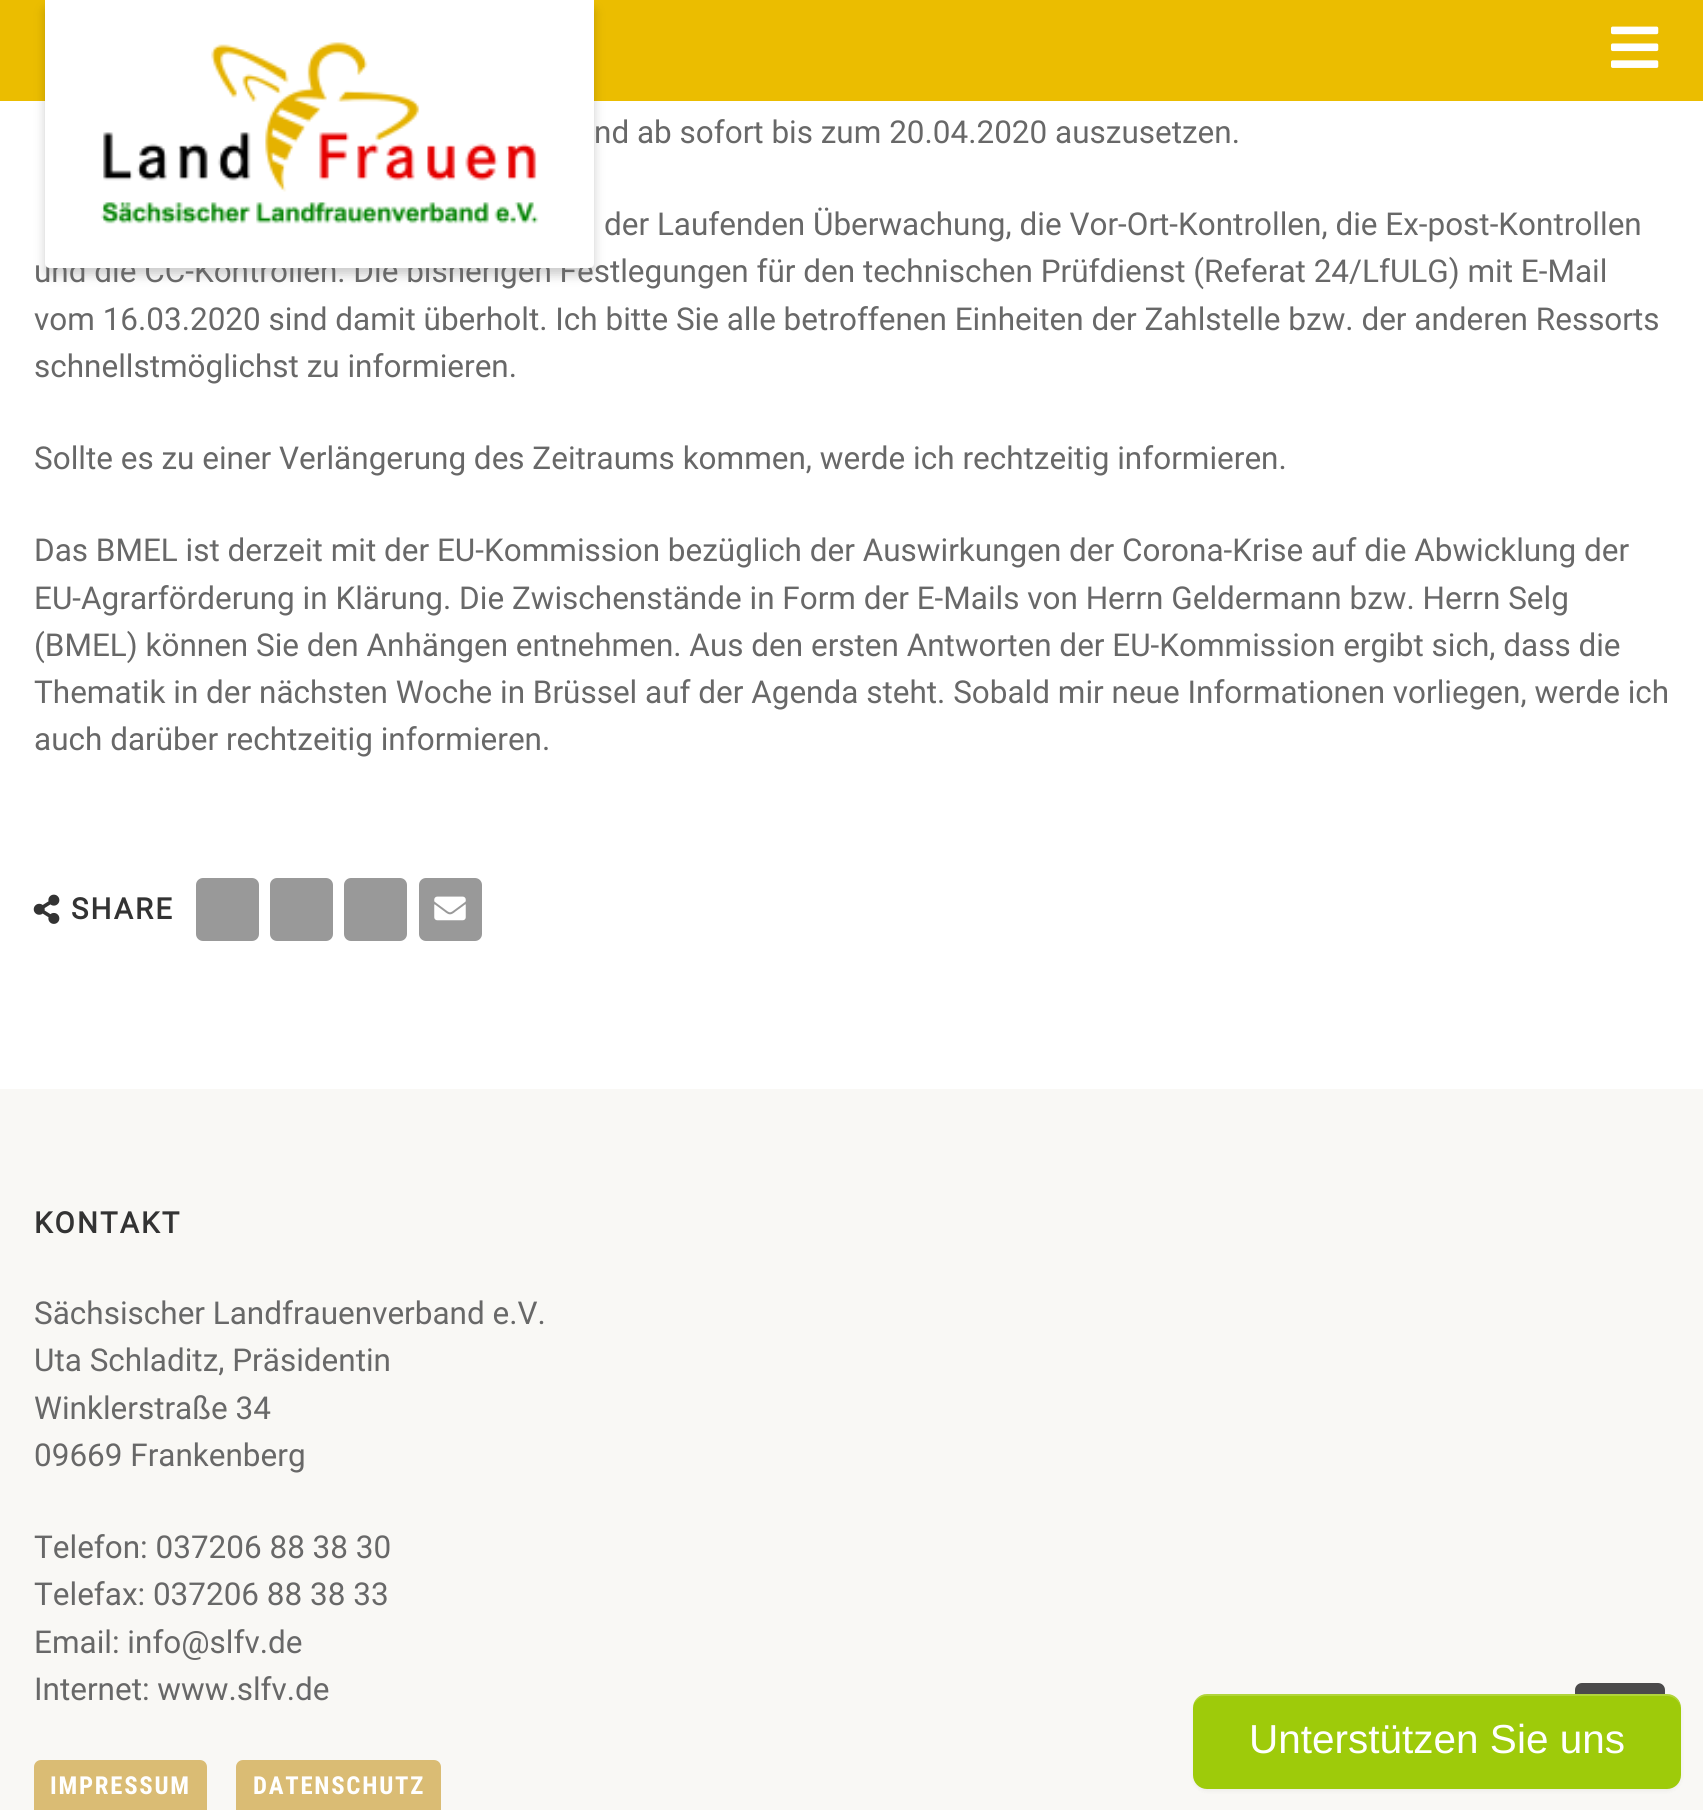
#include <cairo.h>
#include <math.h>
#include <stddef.h>

static cairo_t *c;
static void C(unsigned color){cairo_set_source_rgb(c, (color >> 16) / 255.0, (color >> 8 & 255) / 255.0, (color & 255) / 255.0);}
static void F(const char *family, double size, int italic, int bold){cairo_select_font_face(c, family, italic ? CAIRO_FONT_SLANT_ITALIC : CAIRO_FONT_SLANT_NORMAL,bold ? CAIRO_FONT_WEIGHT_BOLD : CAIRO_FONT_WEIGHT_NORMAL);cairo_set_font_size(c, size);}
static void T(double x, double y, const char *s){cairo_move_to(c, x, y);cairo_show_text(c, s);}
static void L(double x, double y, const char *s, double letter, double word){cairo_move_to(c, x, y);while (*s) {char ch[5] = {0};int n = 0;do ch[n++] = *s++; while ((*s & 0xC0) == 0x80);cairo_show_text(c, ch);cairo_rel_move_to(c, letter + word * (*ch == ' '), 0);}}
static void R(double x, double y, double w, double h){cairo_rectangle(c, x, y, w, h);cairo_fill(c);}
static void Q(double x, double y, double w, double h, double r){cairo_new_sub_path(c);cairo_arc(c, x + w - r, y + h - r, r, 0, M_PI / 2);cairo_arc(c, x + r, y + h - r, r, M_PI / 2, M_PI);cairo_arc(c, x + r, y + r, r, M_PI, 1.5 * M_PI);cairo_arc(c, x + w - r, y + r, r, 1.5 * M_PI, 2 * M_PI);cairo_close_path(c);}
static void S(double x, double y, double w, double h, double r, double blur, double alpha){cairo_push_group_with_content(c, CAIRO_CONTENT_ALPHA);cairo_set_operator(c, CAIRO_OPERATOR_SOURCE);for (int i = 15; i >= -15 && fmin(w, h) + blur * i / 3 > 0; i -= 2) {double e = blur * i / 6;cairo_set_source_rgba(c, 0, 0, 0, alpha * erfc((i - 1) / 8.5) / 2);Q(x - e, y - e, w + 2 * e, h + 2 * e, fmax(0, fmin(r + e + blur * .6, fmin(w, h) / 2 + e)));cairo_fill(c);}cairo_pattern_t *soft = cairo_pop_group(c);cairo_mask(c, soft);cairo_pattern_destroy(soft);}
static void I(const char *path, double x, double y, double w, double h){cairo_surface_t *image = cairo_image_surface_create_from_png(path);cairo_save(c);cairo_set_source_surface(c, image, x, y);cairo_rectangle(c, x, y, w, h);cairo_fill(c);cairo_restore(c);cairo_surface_destroy(image);}
int main(void) {
cairo_surface_t *surface = cairo_image_surface_create(CAIRO_FORMAT_RGB24, 1703, 1810);
c = cairo_create(surface);
cairo_font_options_t *options = cairo_font_options_create();
cairo_font_options_set_hint_metrics(options, CAIRO_HINT_METRICS_OFF);
cairo_font_options_set_hint_style(options, CAIRO_HINT_STYLE_NONE);
cairo_set_font_options(c, options);
cairo_set_miter_limit(c, 4);
C(0xffffff);
cairo_paint(c);
C(0xebbd00);
R(0,0,1703,101);
C(0x000000);
S(45,7,549,268,5,5.5,.2);
F("Roboto",31.5,0,0);
C(0x686868);
T(34,282,"und die CC-Kontrollen. Die bisherigen Festlegungen für den technischen Prüfdienst (Referat 24/LfULG) mit E-Mail");
C(0xffffff);
cairo_new_path(c);
cairo_move_to(c,45,0);
cairo_line_to(c,594,0);
cairo_line_to(c,594,263);
cairo_curve_to(c,594,266,592,268,589,268);
cairo_line_to(c,50,268);
cairo_curve_to(c,47,268,45,266,45,263);
cairo_close_path(c);
cairo_fill(c);
I("1.png",100,42,439,182);
I("2.png",1611,26,48,42);
C(0x686868);
T(594,143,"nd ab sofort bis zum 20.04.2020 auszusetzen.");
T(604,235,"der Laufenden Überwachung, die Vor-Ort-Kontrollen, die Ex-post-Kontrollen");
T(34,330,"vom 16.03.2020 sind damit überholt. Ich bitte Sie alle betroffenen Einheiten der Zahlstelle bzw. der anderen Ressorts");
T(34,377,"schnellstmöglichst zu informieren.");
T(34,469,"Sollte es zu einer Verlängerung des Zeitraums kommen, werde ich rechtzeitig informieren.");
T(34,561,"Das BMEL ist derzeit mit der EU-Kommission bezüglich der Auswirkungen der Corona-Krise auf die Abwicklung der");
T(34,609,"EU-Agrarförderung in Klärung. Die Zwischenstände in Form der E-Mails von Herrn Geldermann bzw. Herrn Selg");
T(34,656,"(BMEL) können Sie den Anhängen entnehmen. Aus den ersten Antworten der EU-Kommission ergibt sich, dass die");
T(34,703,"Thematik in der nächsten Woche in Brüssel auf der Agenda steht. Sobald mir neue Informationen vorliegen, werde ich");
T(34,750,"auch darüber rechtzeitig informieren.");
I("3.png",33,894,27,30);
F("Roboto",29.25,0,1);
C(0x333333);
L(71,919,"SHARE",2.25,0);
C(0x999999);
Q(196,878,63,63,7);
cairo_fill(c);
Q(270,878,63,63,7);
cairo_fill(c);
Q(344,878,63,63,7);
cairo_fill(c);
Q(419,878,63,63,7);
cairo_fill(c);
I("4.png",434,896,32,25);
C(0xf9f8f5);
R(0,1089,1703,721);
C(0x333333);
L(34,1233,"KONTAKT",2.25,0);
F("Roboto",31.5,0,0);
C(0x686868);
T(34,1324,"Sächsischer Landfrauenverband e.V.");
T(34,1371,"Uta Schladitz, Präsidentin");
T(34,1419,"Winklerstraße 34");
T(34,1466,"09669 Frankenberg");
T(34,1558,"Telefon: 037206 88 38 30");
T(34,1605,"Telefax: 037206 88 38 33");
T(34,1653,"Email: info@slfv.de");
T(34,1700,"Internet: www.slfv.de");
C(0xdabc74);
Q(34,1760,173,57,7);
cairo_fill(c);
F("Roboto Condensed",24.75,0,1);
C(0xffffff);
L(50,1794,"IMPRESSUM",1.75,0);
C(0xdabc74);
Q(236,1760,205,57,7);
cairo_fill(c);
C(0xffffff);
L(253,1794,"DATENSCHUTZ",1.75,0);
C(0x4b4a4a);
Q(1575,1683,90,90,7);
cairo_fill(c);
C(0x000000);
S(1193,1697,488,94,14,2,.05);
C(0x9ecb0a);
Q(1193,1694,488,95,14);
cairo_fill(c);
cairo_set_source_rgba(c,1,1,1,0.2);
cairo_new_path(c);
cairo_move_to(c,1206,1696);
cairo_line_to(c,1667,1696);
cairo_curve_to(c,1675,1696,1681,1703,1681,1710);
cairo_curve_to(c,1681,1702,1676,1694,1667,1694);
cairo_line_to(c,1207,1694);
cairo_curve_to(c,1201,1694,1195,1698,1194,1704);
cairo_curve_to(c,1196,1700,1201,1696,1206,1696);
cairo_close_path(c);
cairo_fill(c);
F("Liberation Sans",40.5,0,0);
C(0xffffff);
T(1249,1753,"Unterstützen Sie uns");
cairo_surface_write_to_png(surface, "o.png");
cairo_font_options_destroy(options);
cairo_destroy(c);
cairo_surface_destroy(surface);
return 0;
}
